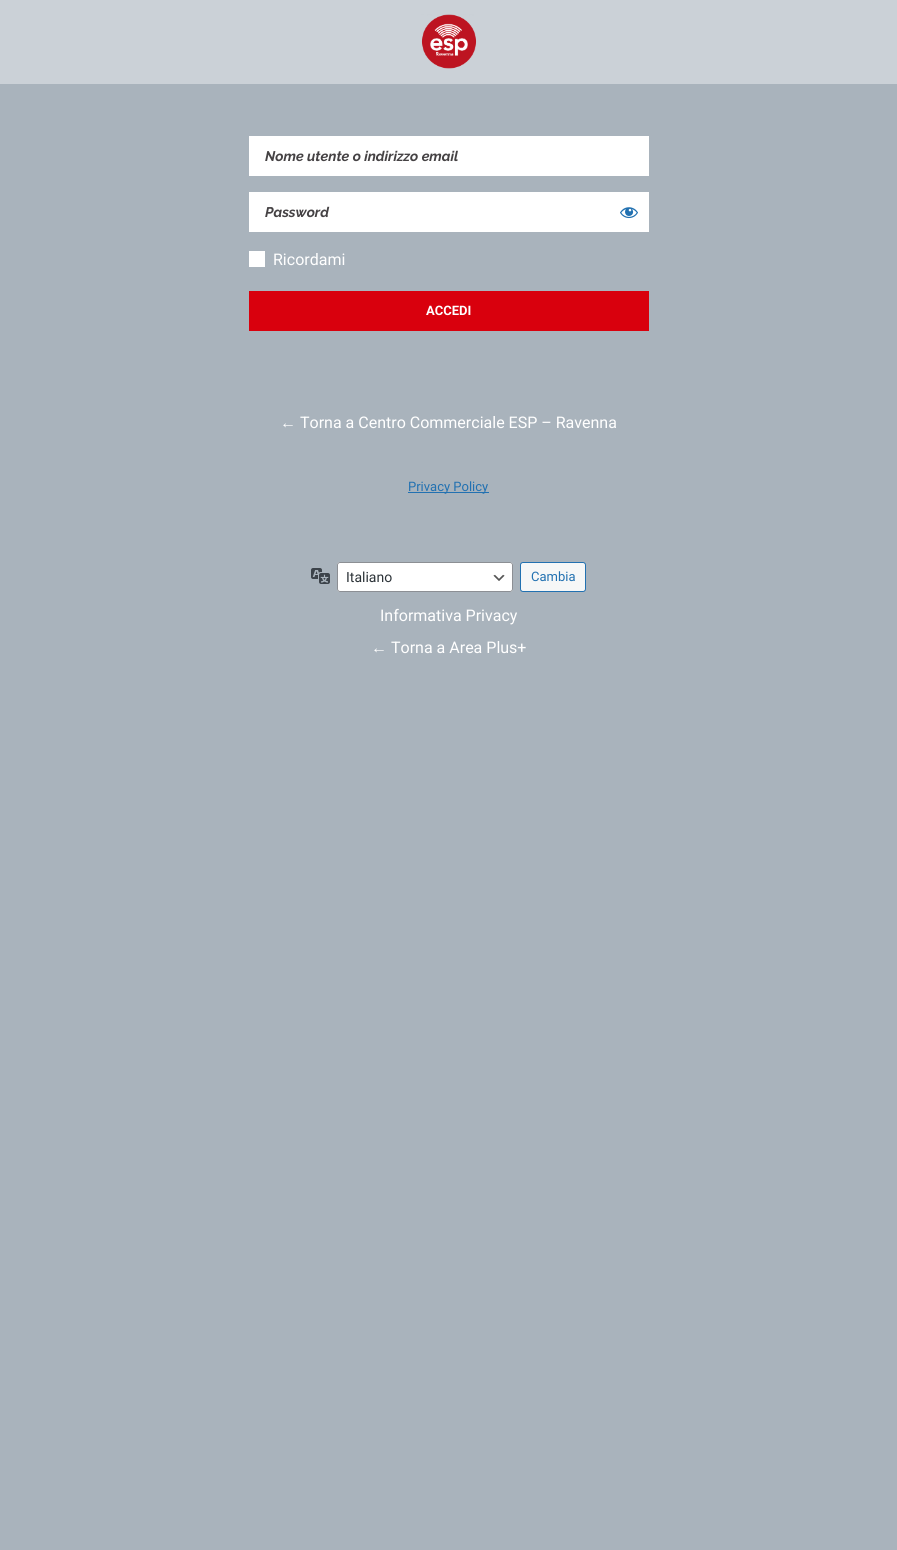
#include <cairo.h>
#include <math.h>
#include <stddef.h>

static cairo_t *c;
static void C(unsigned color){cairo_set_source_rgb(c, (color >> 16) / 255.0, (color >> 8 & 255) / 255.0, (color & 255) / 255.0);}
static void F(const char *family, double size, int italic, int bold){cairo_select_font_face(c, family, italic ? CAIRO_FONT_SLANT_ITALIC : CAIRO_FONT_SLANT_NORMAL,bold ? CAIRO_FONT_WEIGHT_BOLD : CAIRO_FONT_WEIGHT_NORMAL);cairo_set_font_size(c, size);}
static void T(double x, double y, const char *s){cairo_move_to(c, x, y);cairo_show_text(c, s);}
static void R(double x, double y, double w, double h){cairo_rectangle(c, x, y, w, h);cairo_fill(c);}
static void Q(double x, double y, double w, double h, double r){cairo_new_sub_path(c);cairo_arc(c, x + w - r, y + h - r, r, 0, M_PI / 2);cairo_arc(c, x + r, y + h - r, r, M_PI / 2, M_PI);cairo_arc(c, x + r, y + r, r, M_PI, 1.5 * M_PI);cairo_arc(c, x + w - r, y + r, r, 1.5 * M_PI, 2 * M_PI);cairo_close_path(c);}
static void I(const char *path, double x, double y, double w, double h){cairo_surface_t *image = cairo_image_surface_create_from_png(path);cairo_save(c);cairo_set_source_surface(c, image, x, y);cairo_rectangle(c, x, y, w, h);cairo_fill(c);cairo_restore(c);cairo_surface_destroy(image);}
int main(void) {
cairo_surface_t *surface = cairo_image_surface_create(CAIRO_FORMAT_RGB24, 897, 1550);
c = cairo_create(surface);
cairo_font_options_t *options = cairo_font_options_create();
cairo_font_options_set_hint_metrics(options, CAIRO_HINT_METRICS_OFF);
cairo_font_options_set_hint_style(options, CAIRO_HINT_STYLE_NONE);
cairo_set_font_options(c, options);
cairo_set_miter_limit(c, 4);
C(0xa9b3bc);
cairo_paint(c);
C(0xcbd1d7);
R(0,0,897,84);
I("1.png",421,14,56,55);
C(0xffffff);
R(249,136,400,40);
F("Raleway",14,1,1);
C(0x454244);
T(265,161,"Nome utente o indirizzo email");
C(0xffffff);
R(249,192,400,40);
C(0x454244);
T(265,217,"Password");
I("2.png",620,207,18,12);
C(0xffffff);
R(249,251,16,16);
F("Roboto",16,0,0);
T(273,265,"Ricordami");
C(0xd9000d);
R(249,291,400,40);
F("Roboto",13,0,1);
C(0xffffff);
T(426,315,"ACCEDI");
F("Liberation Sans",16,0,0);
T(280,428,"←");
F("Roboto",16,0,0);
T(300,428,"Torna a Centro Commerciale ESP – Ravenna");
C(0x2271b1);
R(408,492,81,1);
F("Roboto",13,0,0);
T(408,491,"Privacy Policy");
I("3.png",311,568,19,16);
C(0xffffff);
Q(337,562,176,30,3);
cairo_fill(c);
I("4.png",493,574,12,7);
Q(337.5,562.5,175,29,2.5);
C(0x8c8f94);
cairo_set_line_width(c,1);
cairo_stroke(c);
F("Roboto",14,0,0);
C(0x2c3338);
T(346,582,"Italiano");
C(0xf6f7f7);
Q(520.5,562.5,65,29,2.5);
cairo_fill_preserve(c);
C(0x2271b1);
cairo_stroke(c);
F("Roboto",13,0,0);
T(531,581,"Cambia");
F("Roboto",16,0,0);
C(0xffffff);
T(380,621,"Informativa Privacy");
F("Liberation Sans",16,0,0);
T(371,653,"←");
F("Roboto",16,0,0);
T(391,653,"Torna a Area Plus+");
cairo_surface_write_to_png(surface, "o.png");
cairo_font_options_destroy(options);
cairo_destroy(c);
cairo_surface_destroy(surface);
return 0;
}
